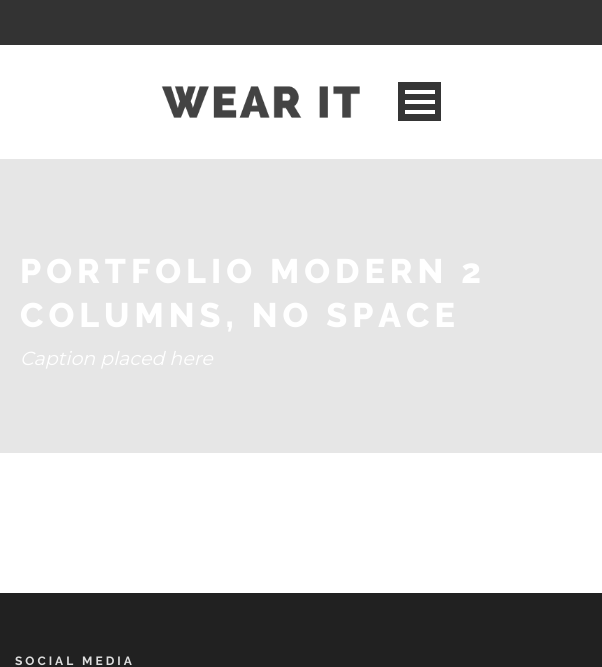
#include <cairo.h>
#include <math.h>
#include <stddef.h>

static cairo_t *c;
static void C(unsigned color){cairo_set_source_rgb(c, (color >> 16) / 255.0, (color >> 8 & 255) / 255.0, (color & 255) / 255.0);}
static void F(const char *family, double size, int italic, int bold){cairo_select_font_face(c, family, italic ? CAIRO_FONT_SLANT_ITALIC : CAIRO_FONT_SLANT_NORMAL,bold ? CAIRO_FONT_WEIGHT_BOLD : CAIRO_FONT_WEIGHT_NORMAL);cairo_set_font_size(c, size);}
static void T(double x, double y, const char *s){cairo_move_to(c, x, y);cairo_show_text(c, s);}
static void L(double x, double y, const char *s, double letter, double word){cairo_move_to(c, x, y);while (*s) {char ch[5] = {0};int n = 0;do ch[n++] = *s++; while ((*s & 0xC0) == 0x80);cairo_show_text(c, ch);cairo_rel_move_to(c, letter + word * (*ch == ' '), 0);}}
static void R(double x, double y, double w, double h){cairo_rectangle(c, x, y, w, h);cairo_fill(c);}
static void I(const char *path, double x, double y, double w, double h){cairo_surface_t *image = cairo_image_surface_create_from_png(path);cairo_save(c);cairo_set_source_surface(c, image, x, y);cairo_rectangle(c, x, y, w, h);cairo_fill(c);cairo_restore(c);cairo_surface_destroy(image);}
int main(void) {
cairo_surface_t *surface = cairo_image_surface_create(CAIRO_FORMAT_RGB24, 602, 667);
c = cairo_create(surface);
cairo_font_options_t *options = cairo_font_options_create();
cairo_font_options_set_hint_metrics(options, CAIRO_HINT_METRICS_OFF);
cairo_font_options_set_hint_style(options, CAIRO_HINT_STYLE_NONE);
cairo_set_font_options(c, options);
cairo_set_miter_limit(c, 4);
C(0xffffff);
cairo_paint(c);
C(0x333333);
R(0,0,602,45);
I("1.png",161,86,199,32);
C(0x353535);
R(398,82,43,39);
C(0xffffff);
R(405,110,30,4);
R(405,100,30,4);
R(405,90,30,4);
C(0xe6e6e6);
R(0,159,602,294);
F("Raleway ExtraBold",34,0,0);
C(0xffffff);
L(20,283,"PORTFOLIO MODERN 2",5,0);
L(20,327,"COLUMNS, NO SPACE",5,0);
F("Montserrat",19,1,0);
T(20,365,"Caption placed here");
C(0x212121);
R(0,593,602,74);
F("Raleway",12,0,1);
C(0xdddddd);
L(15,665,"SOCIAL MEDIA",3,0);
cairo_surface_write_to_png(surface, "o.png");
cairo_font_options_destroy(options);
cairo_destroy(c);
cairo_surface_destroy(surface);
return 0;
}
